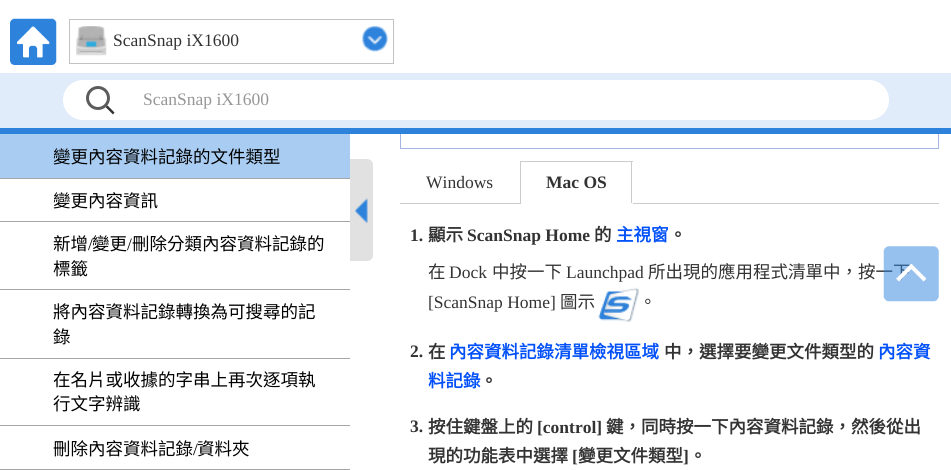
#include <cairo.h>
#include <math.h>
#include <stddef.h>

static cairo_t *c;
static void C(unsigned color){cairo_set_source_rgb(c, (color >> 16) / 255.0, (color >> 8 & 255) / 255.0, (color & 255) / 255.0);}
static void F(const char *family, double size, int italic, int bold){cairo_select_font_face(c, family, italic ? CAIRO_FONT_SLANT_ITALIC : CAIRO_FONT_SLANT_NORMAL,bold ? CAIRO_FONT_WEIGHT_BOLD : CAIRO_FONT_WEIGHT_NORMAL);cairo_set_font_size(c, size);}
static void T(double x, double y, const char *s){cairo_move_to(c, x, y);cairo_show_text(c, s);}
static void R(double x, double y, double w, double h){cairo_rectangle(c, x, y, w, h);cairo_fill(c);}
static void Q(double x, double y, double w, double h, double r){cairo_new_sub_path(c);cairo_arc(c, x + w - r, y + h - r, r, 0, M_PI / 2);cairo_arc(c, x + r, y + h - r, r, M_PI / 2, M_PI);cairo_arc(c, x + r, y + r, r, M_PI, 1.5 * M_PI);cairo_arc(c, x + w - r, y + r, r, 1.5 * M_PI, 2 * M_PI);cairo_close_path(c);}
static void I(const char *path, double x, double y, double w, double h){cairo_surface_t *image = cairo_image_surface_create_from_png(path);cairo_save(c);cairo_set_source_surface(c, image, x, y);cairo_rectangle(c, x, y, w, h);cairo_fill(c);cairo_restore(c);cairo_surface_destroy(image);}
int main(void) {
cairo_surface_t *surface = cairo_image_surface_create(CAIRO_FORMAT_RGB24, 951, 470);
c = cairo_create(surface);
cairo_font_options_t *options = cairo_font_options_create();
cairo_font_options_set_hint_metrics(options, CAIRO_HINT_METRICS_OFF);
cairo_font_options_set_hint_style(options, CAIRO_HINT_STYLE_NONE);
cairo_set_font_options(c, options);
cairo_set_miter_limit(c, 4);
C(0xffffff);
cairo_paint(c);
cairo_rectangle(c,69.5,19.5,324,44);
C(0xc3c3c3);
cairo_set_line_width(c,1);
cairo_stroke(c);
I("1.png",76,26,31,30);
F("Liberation Serif",17.5,0,0);
C(0x333333);
T(113,46,"ScanSnap iX1600");
I("2.png",362,26,27,26);
cairo_rectangle(c,400.5,19.5,538,129);
C(0xa5b4e2);
cairo_stroke(c);
C(0xffffff);
R(400,19,539,54);
C(0x2d82dc);
R(0,128,951,6);
I("3.png",10,18,47,47);
C(0xe0ecf9);
R(0,73,951,55);
C(0xffffff);
Q(63,80,826,40,20);
cairo_fill(c);
cairo_arc(c,98,98,10.5,0,2 * M_PI);
C(0x5c5c5c);
cairo_set_line_width(c,3);
cairo_stroke(c);
C(0x333333);
cairo_new_path(c);
cairo_move_to(c,107.5,105.5);
cairo_line_to(c,114.5,112.5);
cairo_line_to(c,113,114.5);
cairo_line_to(c,105.5,107);
cairo_close_path(c);
cairo_fill(c);
C(0x969696);
T(143,105,"ScanSnap iX1600");
C(0xa9cdf2);
R(0,134,350,44);
C(0xa6a6a6);
R(0,178,350,1);
F("Noto Sans CJK TC",17.5,0,0);
C(0x000000);
T(53,163,"變更內容資料記錄的文件類型");
C(0xa6a6a6);
R(0,221,350,1);
C(0x000000);
T(53,207,"變更內容資訊");
C(0xa6a6a6);
R(0,289,350,1);
C(0x000000);
T(53,250,"新增");
F("Liberation Serif",17.5,0,0);
T(88,250,"/");
F("Noto Sans CJK TC",17.5,0,0);
T(92,250,"變更");
F("Liberation Serif",17.5,0,0);
T(127,250,"/");
F("Noto Sans CJK TC",17.5,0,0);
T(132,250,"刪除分類內容資料記錄的");
T(53,275,"標籤");
C(0xa6a6a6);
R(0,358,350,1);
C(0x000000);
T(53,318,"將內容資料記錄轉換為可搜尋的記");
T(53,343,"錄");
C(0xa6a6a6);
R(0,425,350,1);
C(0x000000);
T(53,386,"在名片或收據的字串上再次逐項執");
T(53,410,"行文字辨識");
C(0xa6a6a6);
R(0,469,350,1);
C(0x000000);
T(53,455,"刪除內容資料記錄");
F("Liberation Serif",17.5,0,0);
T(193,455,"/");
F("Noto Sans CJK TC",17.5,0,0);
T(197,455,"資料夾");
C(0xe1e1e1);
cairo_new_path(c);
cairo_move_to(c,350,159);
cairo_line_to(c,367,159);
cairo_curve_to(c,370.5,159,373,161.5,373,165);
cairo_line_to(c,373,255);
cairo_curve_to(c,373,258.5,370.5,261,367,261);
cairo_line_to(c,350,261);
cairo_close_path(c);
cairo_fill(c);
I("4.png",354,198,14,25);
F("Liberation Serif",17.5,0,0);
C(0x333333);
T(426,188,"Windows");
C(0xcccccc);
R(520,161,113,1);
R(400,203,539,1);
R(631,161,1,43);
C(0xffffff);
R(520,203,113,1);
C(0xcccccc);
R(520,161,1,43);
F("Liberation Serif",17.5,0,1);
C(0x333333);
T(546,188,"Mac OS");
T(410,241,"1.");
F("Noto Sans CJK TC",17.5,0,1);
T(428,241,"顯示");
F("Liberation Serif",17.5,0,1);
T(467,241,"ScanSnap Home");
F("Noto Sans CJK TC",17.5,0,1);
T(594,241,"的");
C(0x0050fa);
T(616,241,"主視窗");
C(0x333333);
T(669,241,"。");
F("Noto Sans CJK TC",17.5,0,0);
T(428,278,"在");
F("Liberation Serif",17.5,0,0);
T(449,278,"Dock");
F("Noto Sans CJK TC",17.5,0,0);
T(492,278,"中按一下");
F("Liberation Serif",17.5,0,0);
T(566,278,"Launchpad");
F("Noto Sans CJK TC",17.5,0,0);
T(648,278,"所出現的應用程式清單中，按一下");
F("Liberation Serif",17.5,0,0);
T(428,308,"[ScanSnap Home]");
F("Noto Sans CJK TC",17.5,0,0);
T(560,308,"圖示");
I("5.png",598,287,41,35);
T(639,308,"。");
F("Liberation Serif",17.5,0,1);
T(410,357,"2.");
F("Noto Sans CJK TC",17.5,0,1);
T(428,358,"在");
C(0x0050fa);
T(449,358,"內容資料記錄清單檢視區域");
C(0x333333);
T(664,358,"中，選擇要變更文件類型的");
C(0x0050fa);
T(878,358,"內容資");
T(428,387,"料記錄");
C(0x333333);
T(480,387,"。");
F("Liberation Serif",17.5,0,1);
T(410,432,"3.");
F("Noto Sans CJK TC",17.5,0,1);
T(428,433,"按住鍵盤上的");
F("Liberation Serif",17.5,0,1);
T(537,433,"[control]");
F("Noto Sans CJK TC",17.5,0,1);
T(606,433,"鍵，同時按一下內容資料記錄，然後從出");
T(428,462,"現的功能表中選擇");
F("Liberation Serif",17.5,0,1);
T(572,462,"[");
F("Noto Sans CJK TC",17.5,0,1);
T(578,462,"變更文件類型");
F("Liberation Serif",17.5,0,1);
T(683,462,"]");
F("Noto Sans CJK TC",17.5,0,1);
T(689,462,"。");
I("6.png",883,246,56,56);
cairo_surface_write_to_png(surface, "o.png");
cairo_font_options_destroy(options);
cairo_destroy(c);
cairo_surface_destroy(surface);
return 0;
}
